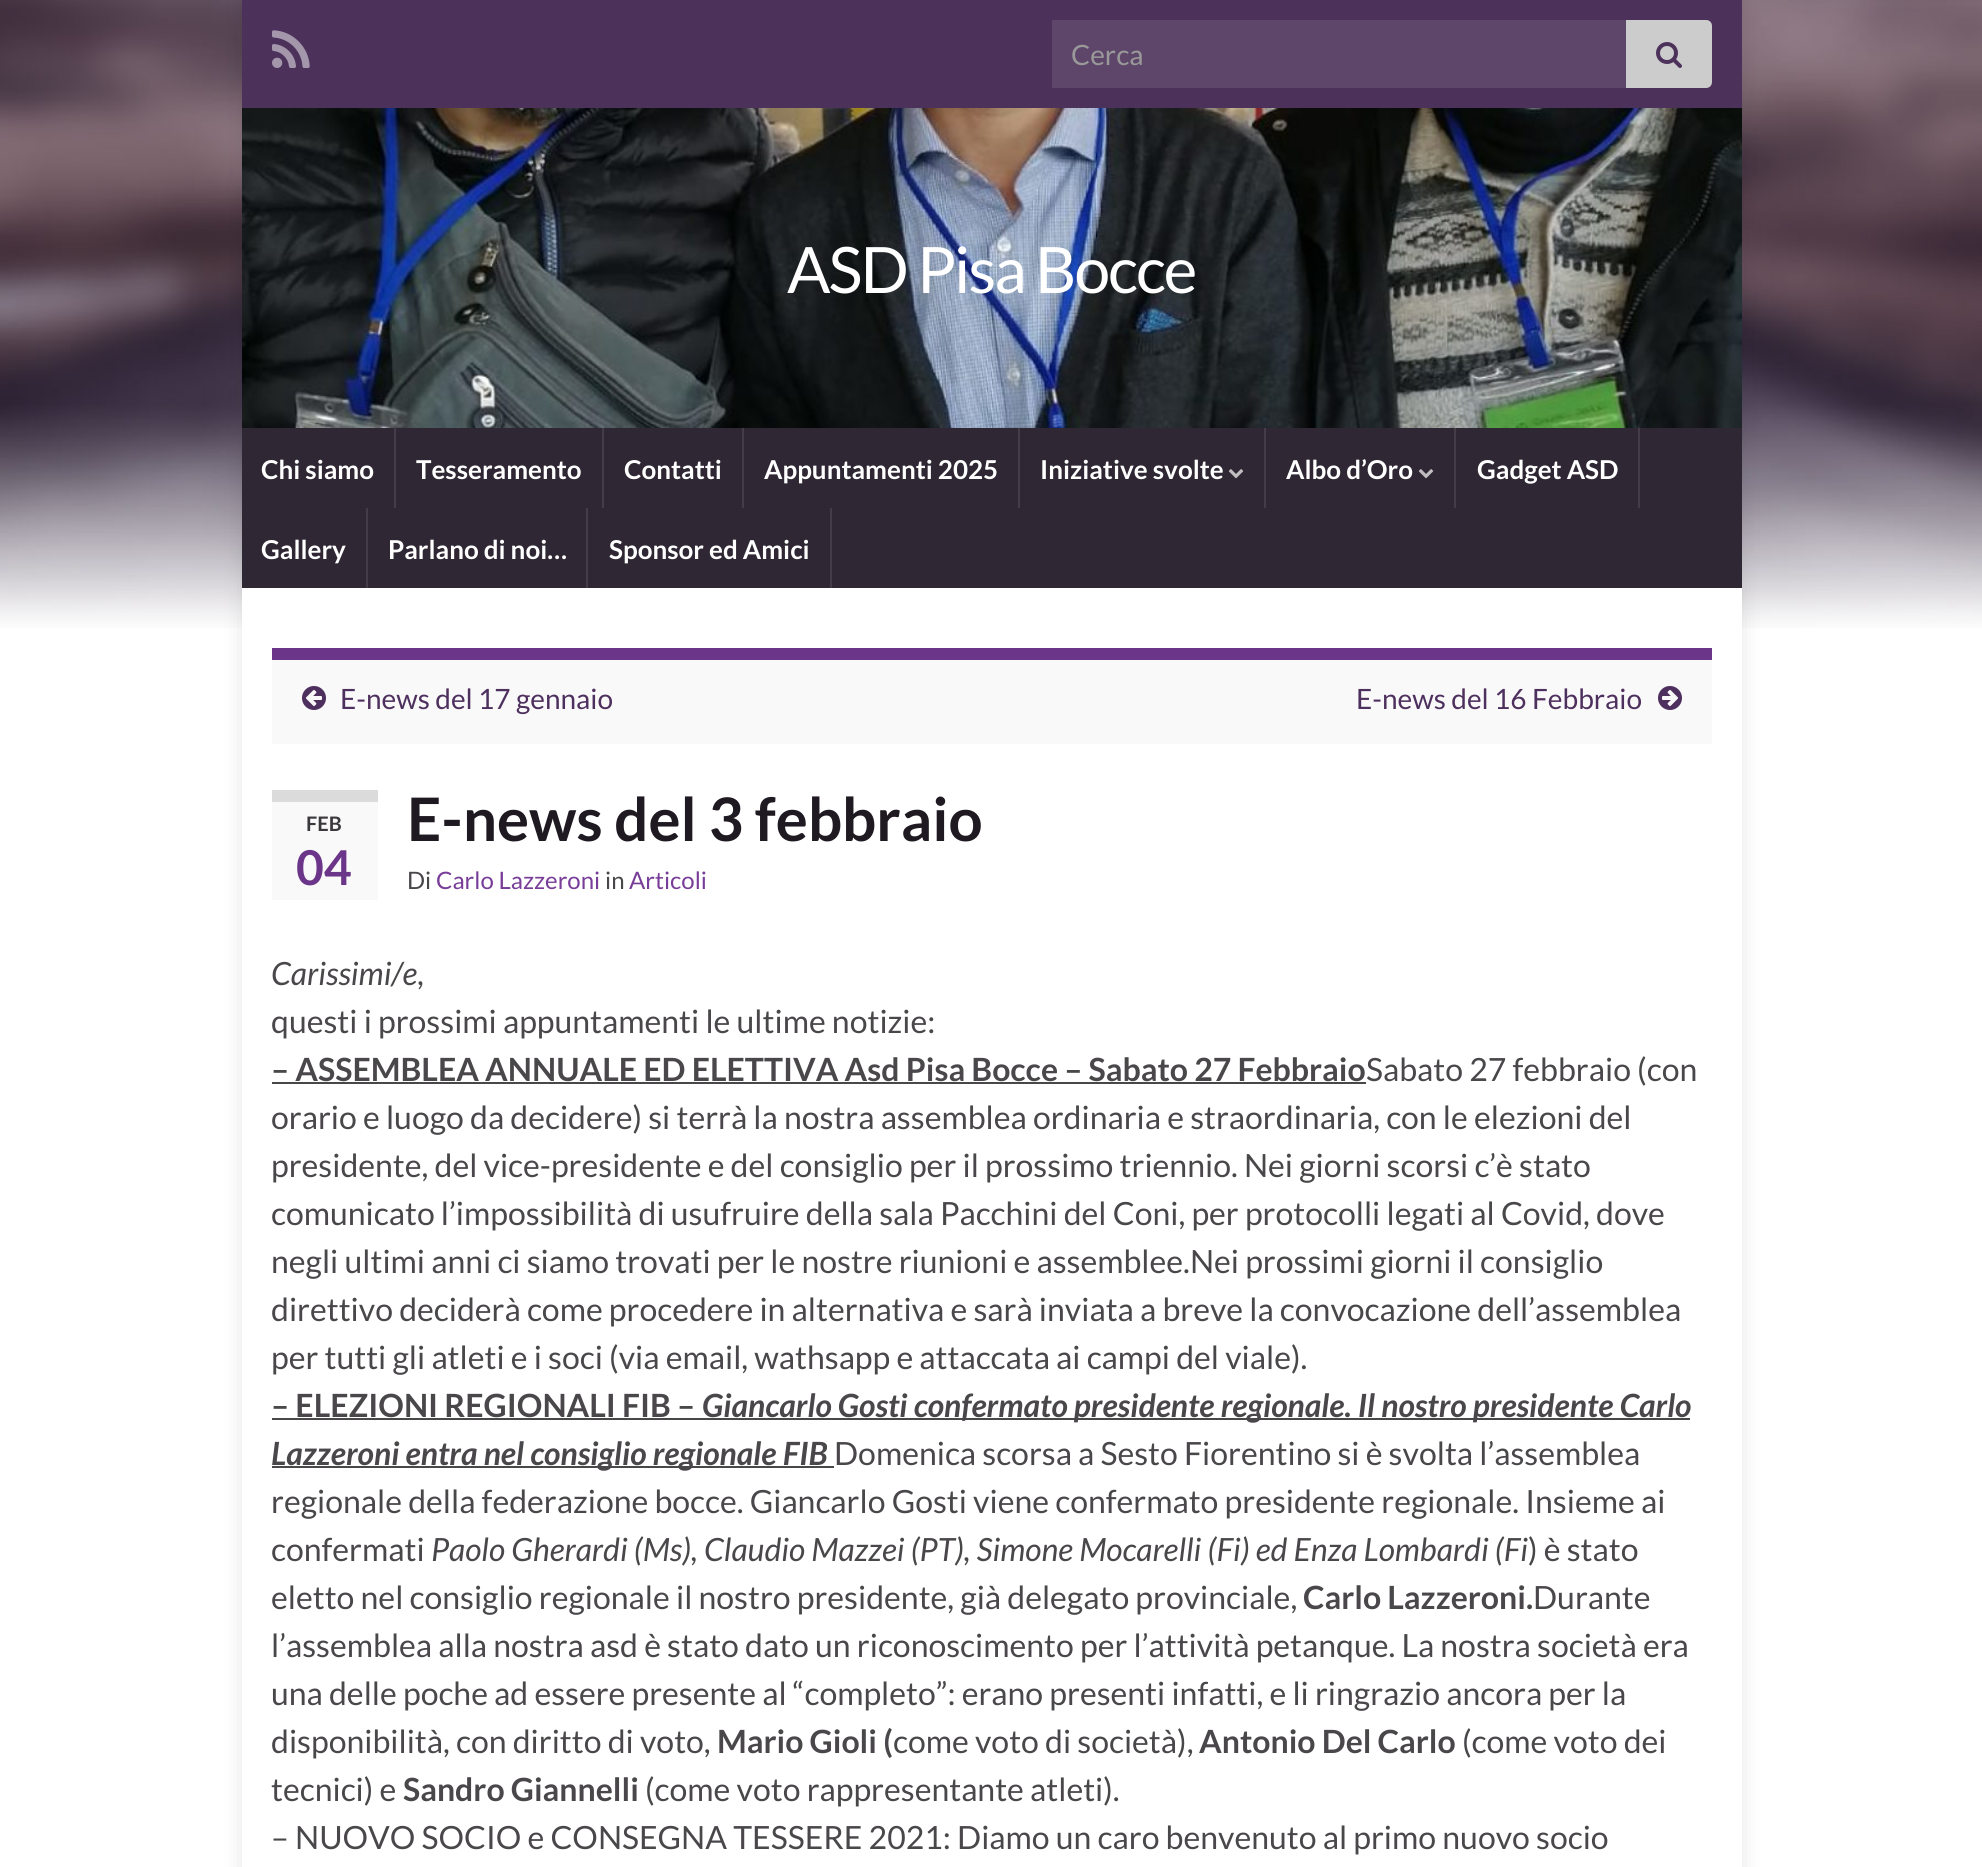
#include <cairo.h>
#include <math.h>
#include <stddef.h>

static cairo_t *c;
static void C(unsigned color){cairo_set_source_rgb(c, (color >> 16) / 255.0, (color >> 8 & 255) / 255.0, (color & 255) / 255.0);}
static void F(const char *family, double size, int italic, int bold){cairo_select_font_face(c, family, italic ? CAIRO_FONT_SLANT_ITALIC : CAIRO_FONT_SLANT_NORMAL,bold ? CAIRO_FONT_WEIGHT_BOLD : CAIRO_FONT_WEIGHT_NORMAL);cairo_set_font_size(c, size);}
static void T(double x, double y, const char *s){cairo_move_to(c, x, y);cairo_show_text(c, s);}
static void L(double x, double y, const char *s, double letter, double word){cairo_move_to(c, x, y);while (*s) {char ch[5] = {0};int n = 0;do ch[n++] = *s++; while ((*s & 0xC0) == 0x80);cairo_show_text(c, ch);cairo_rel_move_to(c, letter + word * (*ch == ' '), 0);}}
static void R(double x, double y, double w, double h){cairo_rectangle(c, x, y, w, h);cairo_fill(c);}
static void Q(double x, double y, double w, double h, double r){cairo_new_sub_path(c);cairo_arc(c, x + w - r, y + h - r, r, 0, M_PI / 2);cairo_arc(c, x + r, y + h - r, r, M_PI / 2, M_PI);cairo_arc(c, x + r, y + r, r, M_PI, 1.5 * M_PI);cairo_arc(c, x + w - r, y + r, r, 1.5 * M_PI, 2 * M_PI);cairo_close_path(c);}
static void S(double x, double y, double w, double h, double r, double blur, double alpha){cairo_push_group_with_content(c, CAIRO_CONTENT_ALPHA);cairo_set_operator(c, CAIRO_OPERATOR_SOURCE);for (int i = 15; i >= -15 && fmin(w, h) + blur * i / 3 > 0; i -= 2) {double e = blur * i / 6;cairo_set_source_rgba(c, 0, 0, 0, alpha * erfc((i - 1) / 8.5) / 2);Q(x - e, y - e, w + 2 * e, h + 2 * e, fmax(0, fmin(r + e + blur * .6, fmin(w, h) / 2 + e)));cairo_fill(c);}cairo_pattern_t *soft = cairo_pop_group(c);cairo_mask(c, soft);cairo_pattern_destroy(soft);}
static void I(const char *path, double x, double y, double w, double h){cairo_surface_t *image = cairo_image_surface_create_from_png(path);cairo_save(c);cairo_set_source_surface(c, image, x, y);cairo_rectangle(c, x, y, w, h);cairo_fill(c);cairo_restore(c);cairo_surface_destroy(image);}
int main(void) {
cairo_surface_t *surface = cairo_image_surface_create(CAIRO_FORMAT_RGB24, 1982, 1867);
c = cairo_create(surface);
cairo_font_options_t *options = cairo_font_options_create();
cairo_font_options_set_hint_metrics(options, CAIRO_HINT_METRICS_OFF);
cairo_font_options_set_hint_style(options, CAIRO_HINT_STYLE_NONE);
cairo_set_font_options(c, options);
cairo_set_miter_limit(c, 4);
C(0xffffff);
cairo_paint(c);
I("1.png",0,0,1982,628);
C(0x000000);
S(242,0,1500,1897,0,10,.1);
C(0x4c315a);
R(242,0,1500,108);
I("2.png",272,30,38,38);
C(0x5e466b);
R(1052,20,574,68);
F("Lato",28,0,0);
C(0x999999);
T(1071,65,"Cerca");
C(0xcccccc);
cairo_new_path(c);
cairo_move_to(c,1626,20);
cairo_line_to(c,1706,20);
cairo_curve_to(c,1709.5,20,1712,22.5,1712,26);
cairo_line_to(c,1712,82);
cairo_curve_to(c,1712,85.5,1709.5,88,1706,88);
cairo_line_to(c,1626,88);
cairo_close_path(c);
cairo_fill(c);
I("3.png",1656,42,26,26);
I("4.png",242,108,1500,320);
C(0x2f2733);
R(242,428,1500,160);
F("Lato",64,0,0);
C(0xffffff);
L(787,293,"ASD Pisa Bocce",-2,0);
C(0x443d47);
R(394,428,2,80);
F("Lato",26,0,1);
C(0xffffff);
T(261,479,"Chi siamo");
C(0x443d47);
R(602,428,2,80);
C(0xffffff);
T(416,479,"Tesseramento");
C(0x443d47);
R(742,428,2,80);
C(0xffffff);
T(624,479,"Contatti");
C(0x443d47);
R(1018,428,2,80);
C(0xffffff);
T(764,479,"Appuntamenti 2025");
C(0x443d47);
R(1264,428,2,80);
C(0xffffff);
T(1040,479,"Iniziative svolte");
I("5.png",1228,469,16,10);
C(0x443d47);
R(1454,428,2,80);
C(0xffffff);
T(1286,479,"Albo d’Oro");
I("5.png",1418,469,16,10);
C(0x443d47);
R(1638,428,2,80);
C(0xffffff);
T(1477,479,"Gadget ASD");
C(0x443d47);
R(366,508,2,80);
C(0xffffff);
T(261,559,"Gallery");
C(0x443d47);
R(586,508,2,80);
C(0xffffff);
T(388,559,"Parlano di noi…");
C(0x443d47);
R(830,508,2,80);
C(0xffffff);
T(609,559,"Sponsor ed Amici");
R(242,588,1500,1279);
C(0xf9f9f9);
R(272,660,1440,84);
C(0x6b3589);
R(272,648,1440,12);
I("6.png",302,686,24,24);
F("Lato",28,0,0);
C(0x4e305e);
T(340,709,"E-news del 17 gennaio");
T(1356,709,"E-news del 16 Febbraio");
I("7.png",1658,686,24,24);
C(0xf9f9f9);
R(272,802,106,98);
C(0xdbdbdb);
R(272,790,106,12);
F("Lato",20,0,1);
C(0x3b383d);
T(306,831,"FEB");
F("Lato",48,0,1);
C(0x6b3589);
T(296,885,"04");
F("Lato",60,0,1);
C(0x1f1a22);
T(407,841,"E-news del 3 febbraio");
F("Lato",24,0,0);
C(0x4a474b);
T(407,889,"Di");
C(0x783d98);
T(436,889,"Carlo Lazzeroni");
C(0x4a474b);
T(605,889,"in");
C(0x783d98);
T(629,889,"Articoli");
F("Lato",32,1,0);
C(0x4a474b);
T(271,985,"Carissimi/e");
F("Lato",32,0,0);
T(417,985,",");
T(271,1033,"questi i prossimi appuntamenti le ultime notizie:");
F("Lato",32,0,1);
T(271,1081,"– ASSEMBLEA ANNUALE ED ELETTIVA Asd Pisa Bocce – Sabato 27 Febbraio");
R(272,1082,1094,2);
F("Lato",32,0,0);
T(1366,1081,"Sabato 27 febbraio (con");
T(271,1129,"orario e luogo da decidere) si terrà la nostra assemblea ordinaria e straordinaria, con le elezioni del");
T(271,1177,"presidente, del vice-presidente e del consiglio per il prossimo triennio. Nei giorni scorsi c’è stato");
T(271,1225,"comunicato l’impossibilità di usufruire della sala Pacchini del Coni, per protocolli legati al Covid, dove");
T(271,1273,"negli ultimi anni ci siamo trovati per le nostre riunioni e assemblee.Nei prossimi giorni il consiglio");
T(271,1321,"direttivo deciderà come procedere in alternativa e sarà inviata a breve la convocazione dell’assemblea");
T(271,1369,"per tutti gli atleti e i soci (via email, wathsapp e attaccata ai campi del viale).");
F("Lato",32,0,1);
T(271,1417,"– ELEZIONI REGIONALI FIB –");
R(272,1418,1418,2);
F("Lato",32,1,1);
T(702,1417,"Giancarlo Gosti confermato presidente regionale. Il nostro presidente Carlo");
R(272,1466,562,2);
T(271,1465,"Lazzeroni entra nel consiglio regionale FIB");
F("Lato",32,0,0);
T(834,1465,"Domenica scorsa a Sesto Fiorentino si è svolta l’assemblea");
T(271,1513,"regionale della federazione bocce. Giancarlo Gosti viene confermato presidente regionale. Insieme ai");
T(271,1561,"confermati");
F("Lato",32,1,0);
T(431,1561,"Paolo Gherardi (Ms), Claudio Mazzei (PT), Simone Mocarelli (Fi) ed Enza Lombardi (Fi");
F("Lato",32,0,0);
T(1528,1561,") è stato");
T(271,1609,"eletto nel consiglio regionale il nostro presidente, già delegato provinciale,");
F("Lato",32,0,1);
T(1303,1609,"Carlo Lazzeroni.");
F("Lato",32,0,0);
T(1533,1609,"Durante");
T(271,1657,"l’assemblea alla nostra asd è stato dato un riconoscimento per l’attività petanque. La nostra società era");
T(271,1705,"una delle poche ad essere presente al “completo”: erano presenti infatti, e li ringrazio ancora per la");
T(271,1753,"disponibilità, con diritto di voto,");
F("Lato",32,0,1);
T(717,1753,"Mario Gioli (");
F("Lato",32,0,0);
T(893,1753,"come voto di società),");
F("Lato",32,0,1);
T(1199,1753,"Antonio Del Carlo");
F("Lato",32,0,0);
T(1462,1753,"(come voto dei");
T(271,1801,"tecnici) e");
F("Lato",32,0,1);
T(403,1801,"Sandro Giannelli");
F("Lato",32,0,0);
T(645,1801,"(come voto rappresentante atleti).");
T(271,1849,"– NUOVO SOCIO e CONSEGNA TESSERE 2021: Diamo un caro benvenuto al primo nuovo socio");
cairo_surface_write_to_png(surface, "o.png");
cairo_font_options_destroy(options);
cairo_destroy(c);
cairo_surface_destroy(surface);
return 0;
}
